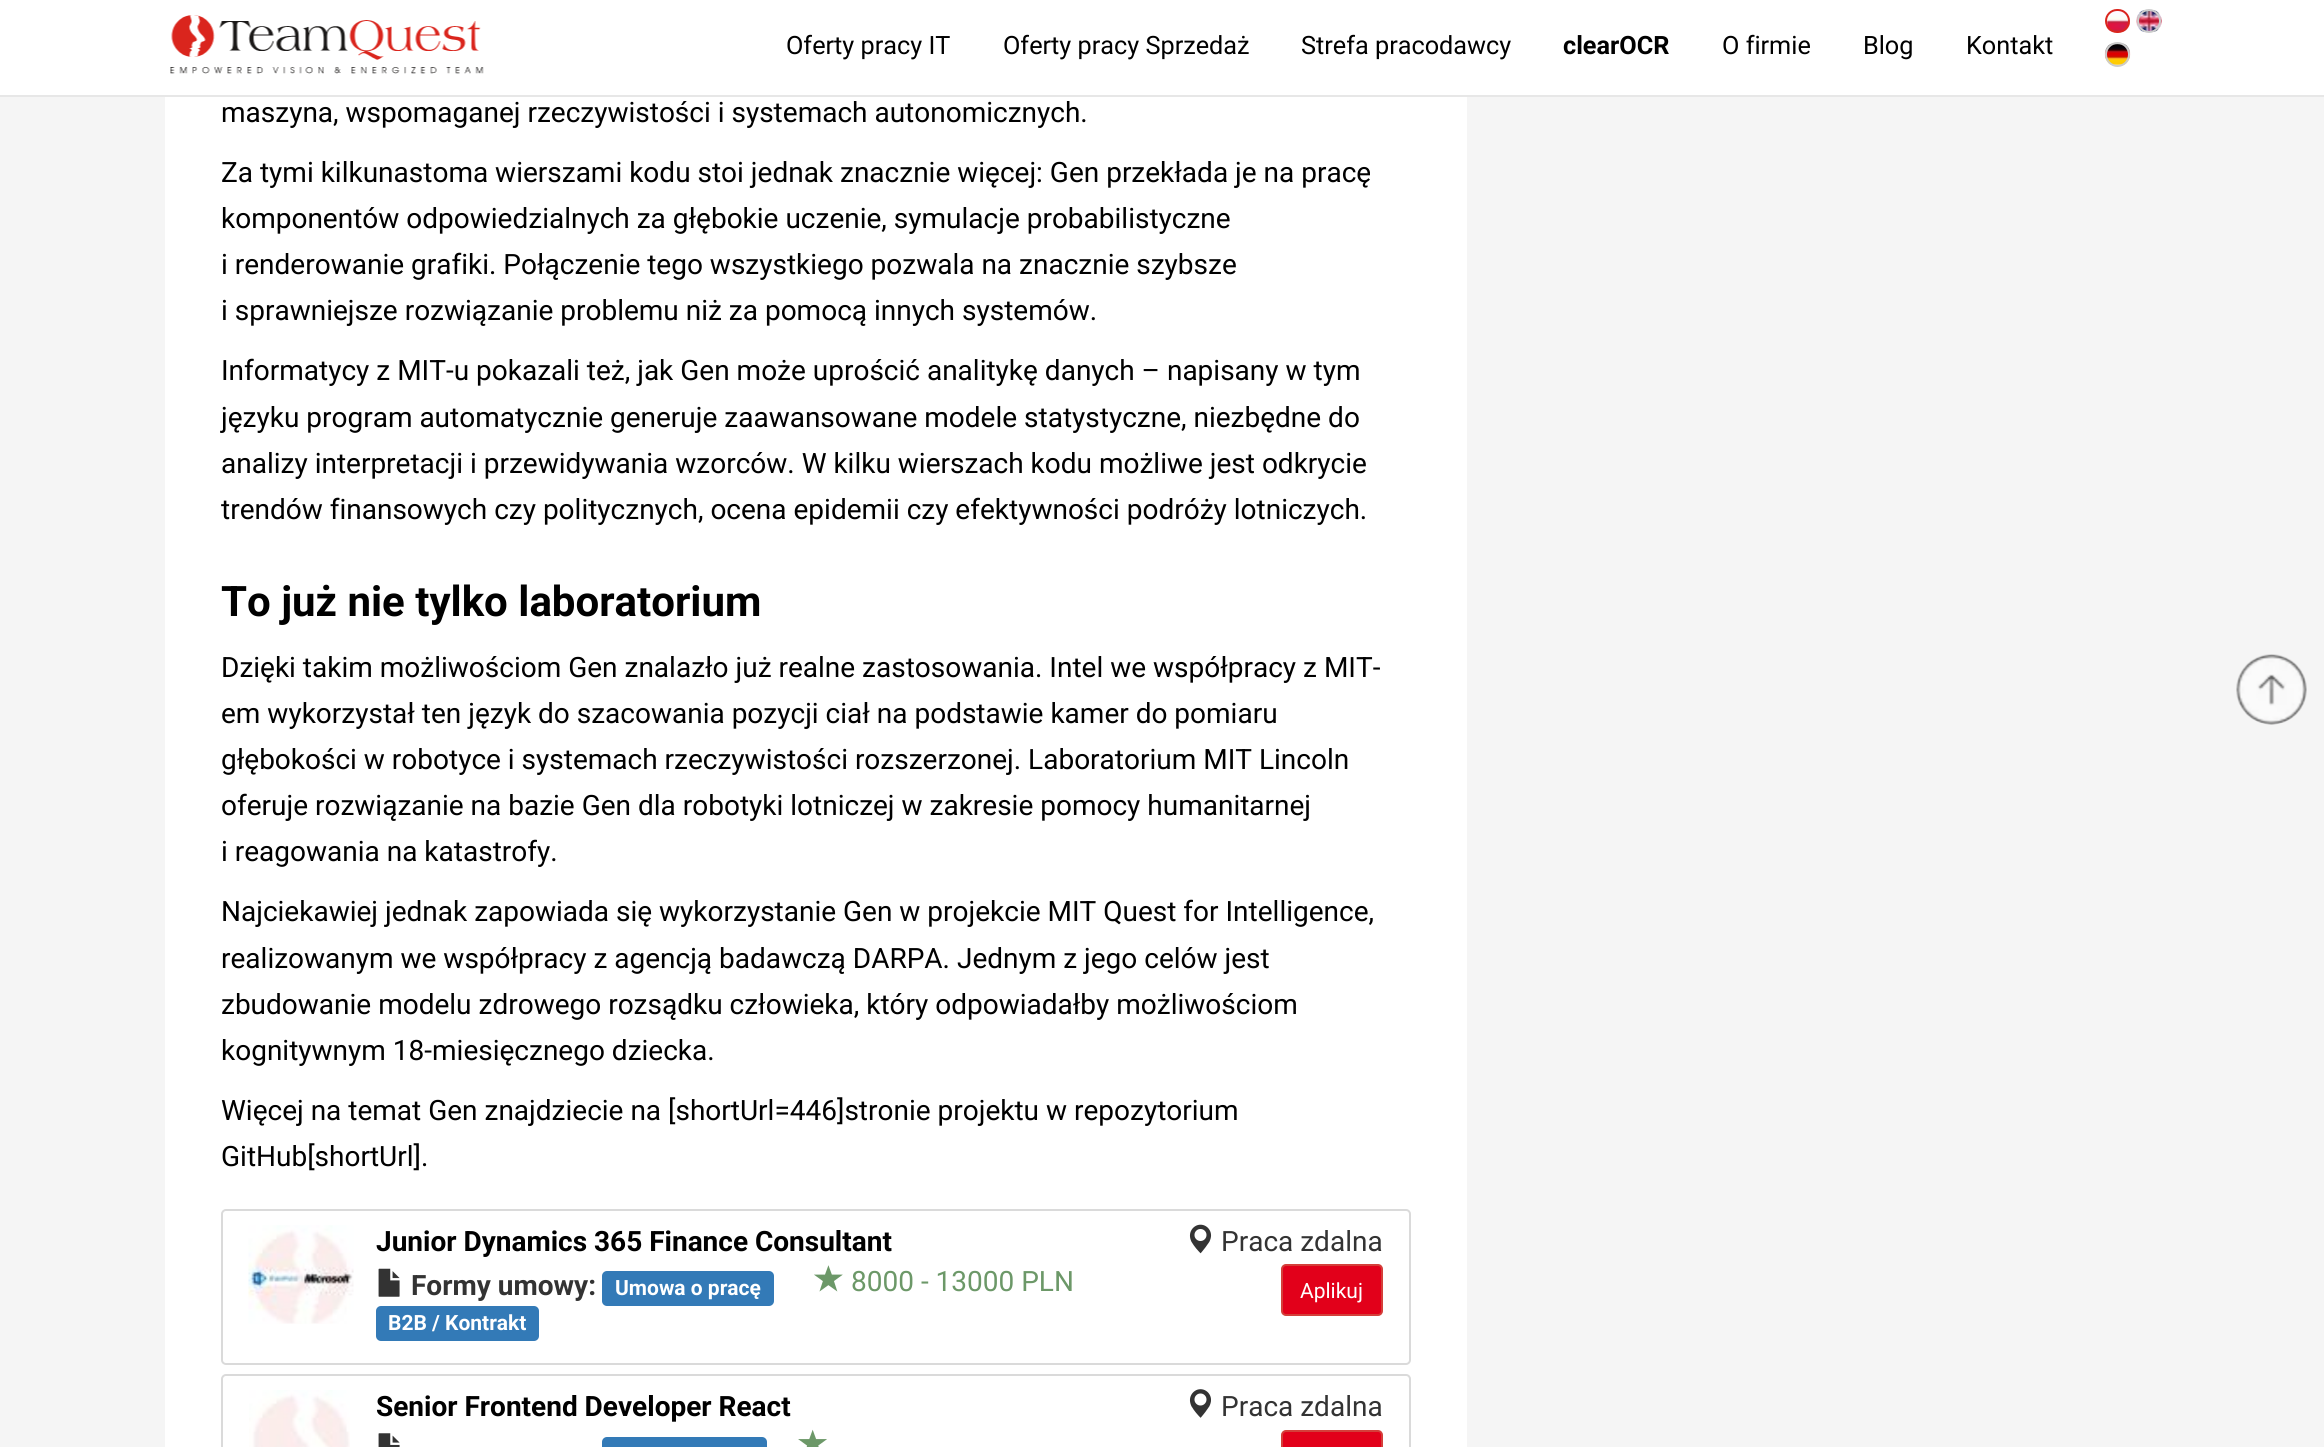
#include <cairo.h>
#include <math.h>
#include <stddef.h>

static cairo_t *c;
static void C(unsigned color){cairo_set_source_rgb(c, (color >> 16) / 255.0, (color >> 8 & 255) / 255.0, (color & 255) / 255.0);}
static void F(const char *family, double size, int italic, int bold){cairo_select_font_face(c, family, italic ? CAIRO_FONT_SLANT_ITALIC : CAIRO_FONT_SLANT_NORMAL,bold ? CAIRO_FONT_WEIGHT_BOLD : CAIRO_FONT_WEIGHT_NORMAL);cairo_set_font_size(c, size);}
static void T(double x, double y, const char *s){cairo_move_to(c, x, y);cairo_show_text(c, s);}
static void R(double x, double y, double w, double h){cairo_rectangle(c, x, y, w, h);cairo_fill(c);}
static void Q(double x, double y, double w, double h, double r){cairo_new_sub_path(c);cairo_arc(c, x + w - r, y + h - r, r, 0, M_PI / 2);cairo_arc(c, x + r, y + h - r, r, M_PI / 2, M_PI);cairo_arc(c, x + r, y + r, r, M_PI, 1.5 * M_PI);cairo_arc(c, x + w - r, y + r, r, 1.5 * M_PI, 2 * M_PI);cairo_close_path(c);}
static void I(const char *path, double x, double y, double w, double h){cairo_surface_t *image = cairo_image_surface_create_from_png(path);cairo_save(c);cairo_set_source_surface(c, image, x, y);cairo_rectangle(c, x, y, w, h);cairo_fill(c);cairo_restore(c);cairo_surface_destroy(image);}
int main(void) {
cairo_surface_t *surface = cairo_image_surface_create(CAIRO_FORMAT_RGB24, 2324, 1447);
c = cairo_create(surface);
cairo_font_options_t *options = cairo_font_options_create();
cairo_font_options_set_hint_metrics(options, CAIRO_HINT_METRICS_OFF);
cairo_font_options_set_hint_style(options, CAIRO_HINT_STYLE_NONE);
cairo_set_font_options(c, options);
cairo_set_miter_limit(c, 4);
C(0xf5f5f5);
cairo_paint(c);
C(0xffffff);
R(0,0,2324,95);
C(0xe7e7e7);
R(0,95,2324,2);
I("1.png",170,15,314,59);
F("Roboto",25.25,0,0);
C(0x000000);
T(786,54,"Oferty pracy IT");
T(1003,54,"Oferty pracy Sprzedaż");
T(1301,54,"Strefa pracodawcy");
F("Roboto",25.25,0,1);
T(1563,54,"clearOCR");
F("Roboto",25.25,0,0);
T(1722,54,"O firmie");
T(1863,54,"Blog");
T(1966,54,"Kontakt");
I("2.png",2106,11,24,21);
Q(2106,10,23,22,11);
C(0xda251d);
cairo_stroke(c);
I("3.png",2136,10,26,22);
cairo_arc(c,2149,21,11,0,2 * M_PI);
C(0xcccccc);
cairo_stroke(c);
I("4.png",2104,43,27,22);
cairo_arc(c,2117.5,54.5,11.5,0,2 * M_PI);
cairo_stroke(c);
C(0xffffff);
R(165,97,1302,1350);
F("Roboto",28,0,0);
C(0x000000);
T(221,122,"maszyna, wspomaganej rzeczywistości i systemach autonomicznych.");
T(221,182,"Za tymi kilkunastoma wierszami kodu stoi jednak znacznie więcej: Gen przekłada je na pracę");
T(221,228,"komponentów odpowiedzialnych za głębokie uczenie, symulacje probabilistyczne");
T(221,274,"i renderowanie grafiki. Połączenie tego wszystkiego pozwala na znacznie szybsze");
T(221,320,"i sprawniejsze rozwiązanie problemu niż za pomocą innych systemów.");
T(221,380,"Informatycy z MIT-u pokazali też, jak Gen może uprościć analitykę danych – napisany w tym");
T(221,427,"języku program automatycznie generuje zaawansowane modele statystyczne, niezbędne do");
T(221,473,"analizy interpretacji i przewidywania wzorców. W kilku wierszach kodu możliwe jest odkrycie");
T(221,519,"trendów finansowych czy politycznych, ocena epidemii czy efektywności podróży lotniczych.");
F("Roboto",42,0,1);
T(221,616,"To już nie tylko laboratorium");
F("Roboto",28,0,0);
T(221,677,"Dzięki takim możliwościom Gen znalazło już realne zastosowania. Intel we współpracy z MIT-");
T(221,723,"em wykorzystał ten język do szacowania pozycji ciał na podstawie kamer do pomiaru");
T(221,769,"głębokości w robotyce i systemach rzeczywistości rozszerzonej. Laboratorium MIT Lincoln");
T(221,815,"oferuje rozwiązanie na bazie Gen dla robotyki lotniczej w zakresie pomocy humanitarnej");
T(221,861,"i reagowania na katastrofy.");
T(221,921,"Najciekawiej jednak zapowiada się wykorzystanie Gen w projekcie MIT Quest for Intelligence,");
T(221,968,"realizowanym we współpracy z agencją badawczą DARPA. Jednym z jego celów jest");
T(221,1014,"zbudowanie modelu zdrowego rozsądku człowieka, który odpowiadałby możliwościom");
T(221,1060,"kognitywnym 18-miesięcznego dziecka.");
T(221,1120,"Więcej na temat Gen znajdziecie na [shortUrl=446]stronie projektu w repozytorium");
T(221,1166,"GitHub[shortUrl].");
Q(222,1210,1188,154,4);
C(0xdadada);
cairo_stroke(c);
I("5.png",248,1225,106,99);
F("Roboto",28,0,1);
C(0x000000);
T(376,1251,"Junior Dynamics 365 Finance Consultant");
I("6.png",378,1268,22,29);
C(0x333333);
T(411,1295,"Formy umowy:");
C(0x337ab7);
Q(602,1271,172,35,5);
cairo_fill(c);
F("Roboto",21,0,1);
C(0xffffff);
T(615,1295,"Umowa o pracę");
C(0x337ab7);
Q(376,1306,163,35,5);
cairo_fill(c);
C(0xffffff);
T(388,1330,"B2B / Kontrakt");
I("7.png",814,1265,29,27);
F("Roboto",28,0,0);
C(0x6c9868);
T(851,1291,"8000 - 13000 PLN");
I("8.png",1189,1224,23,30);
C(0x333333);
T(1221,1251,"Praca zdalna");
C(0xe2001a);
Q(1282,1265,100,50,4);
cairo_fill_preserve(c);
C(0xd43f3a);
cairo_stroke(c);
F("Roboto",21,0,0);
C(0xffffff);
T(1300,1298,"Aplikuj");
Q(222,1375,1188,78,4);
C(0xdadada);
cairo_stroke(c);
I("9.png",249,1390,101,57);
F("Roboto",28,0,1);
C(0x000000);
T(376,1416,"Senior Frontend Developer React");
I("10.png",378,1433,22,14);
C(0x337ab7);
Q(602,1437,165,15,5);
cairo_fill(c);
I("11.png",798,1429,29,18);
I("12.png",1189,1389,22,29);
F("Roboto",28,0,0);
C(0x333333);
T(1221,1416,"Praca zdalna");
C(0xe2001a);
Q(1282,1431,100,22,4);
cairo_fill_preserve(c);
C(0xd43f3a);
cairo_stroke(c);
I("13.png",2236,654,71,71);
cairo_surface_write_to_png(surface, "o.png");
cairo_font_options_destroy(options);
cairo_destroy(c);
cairo_surface_destroy(surface);
return 0;
}
